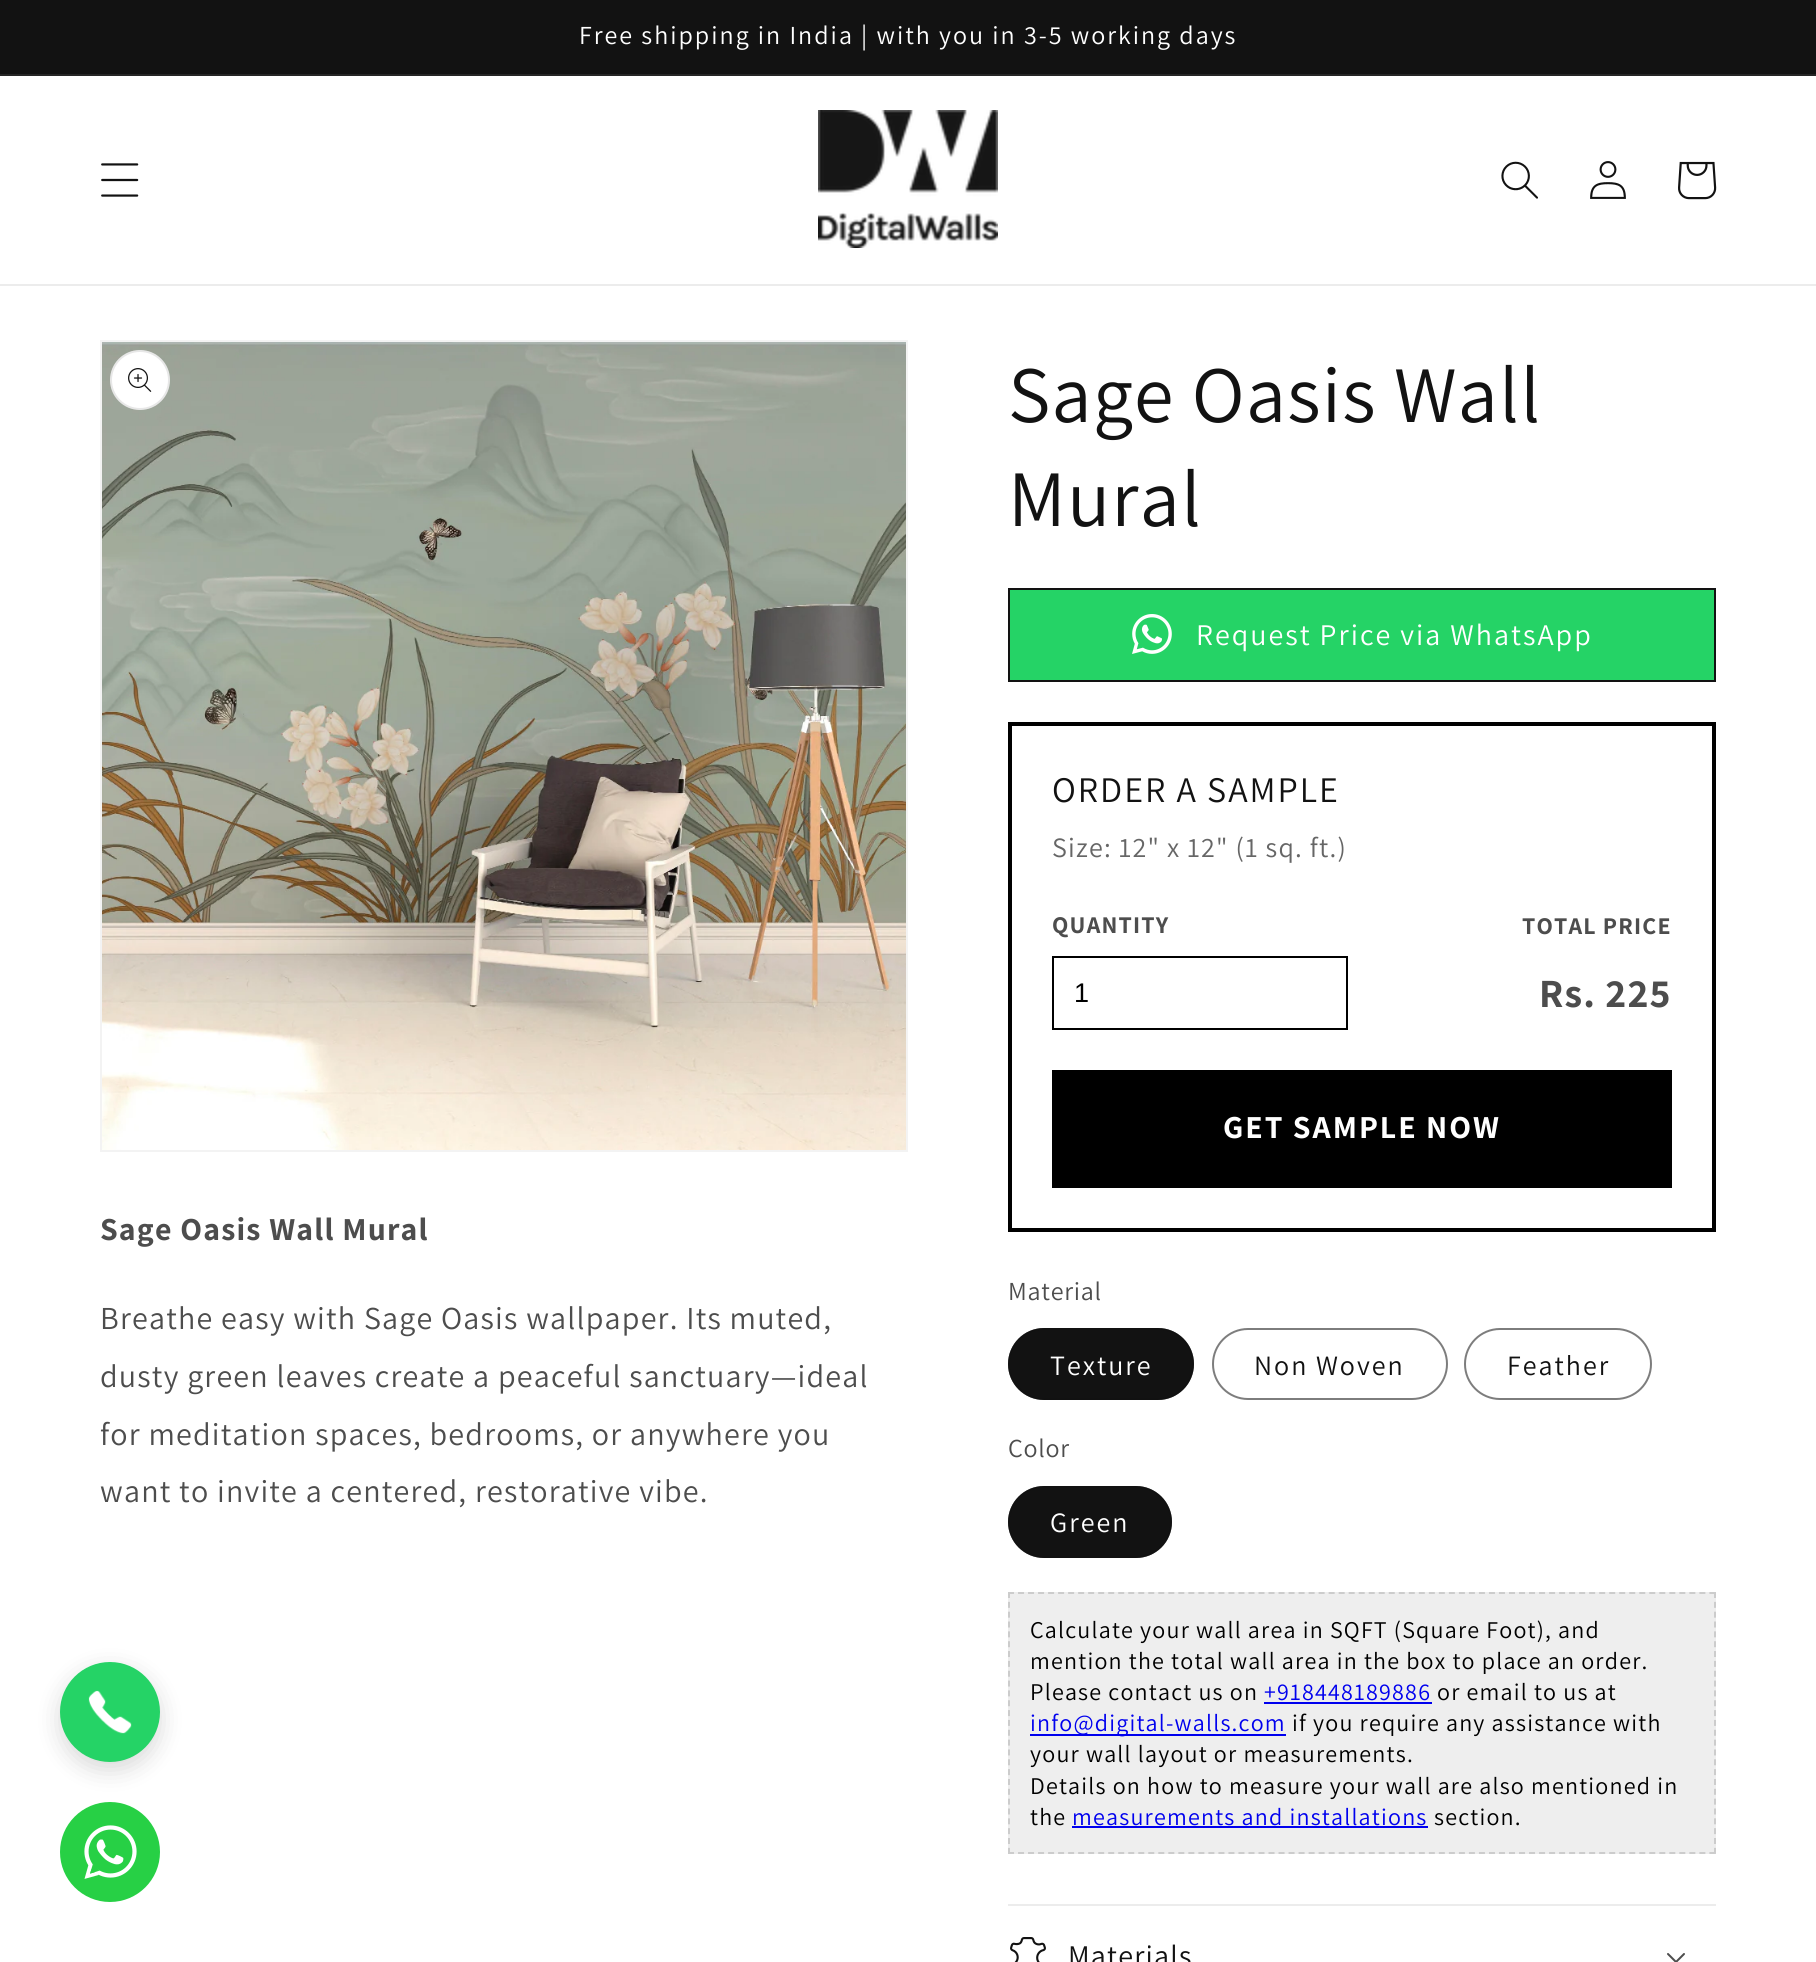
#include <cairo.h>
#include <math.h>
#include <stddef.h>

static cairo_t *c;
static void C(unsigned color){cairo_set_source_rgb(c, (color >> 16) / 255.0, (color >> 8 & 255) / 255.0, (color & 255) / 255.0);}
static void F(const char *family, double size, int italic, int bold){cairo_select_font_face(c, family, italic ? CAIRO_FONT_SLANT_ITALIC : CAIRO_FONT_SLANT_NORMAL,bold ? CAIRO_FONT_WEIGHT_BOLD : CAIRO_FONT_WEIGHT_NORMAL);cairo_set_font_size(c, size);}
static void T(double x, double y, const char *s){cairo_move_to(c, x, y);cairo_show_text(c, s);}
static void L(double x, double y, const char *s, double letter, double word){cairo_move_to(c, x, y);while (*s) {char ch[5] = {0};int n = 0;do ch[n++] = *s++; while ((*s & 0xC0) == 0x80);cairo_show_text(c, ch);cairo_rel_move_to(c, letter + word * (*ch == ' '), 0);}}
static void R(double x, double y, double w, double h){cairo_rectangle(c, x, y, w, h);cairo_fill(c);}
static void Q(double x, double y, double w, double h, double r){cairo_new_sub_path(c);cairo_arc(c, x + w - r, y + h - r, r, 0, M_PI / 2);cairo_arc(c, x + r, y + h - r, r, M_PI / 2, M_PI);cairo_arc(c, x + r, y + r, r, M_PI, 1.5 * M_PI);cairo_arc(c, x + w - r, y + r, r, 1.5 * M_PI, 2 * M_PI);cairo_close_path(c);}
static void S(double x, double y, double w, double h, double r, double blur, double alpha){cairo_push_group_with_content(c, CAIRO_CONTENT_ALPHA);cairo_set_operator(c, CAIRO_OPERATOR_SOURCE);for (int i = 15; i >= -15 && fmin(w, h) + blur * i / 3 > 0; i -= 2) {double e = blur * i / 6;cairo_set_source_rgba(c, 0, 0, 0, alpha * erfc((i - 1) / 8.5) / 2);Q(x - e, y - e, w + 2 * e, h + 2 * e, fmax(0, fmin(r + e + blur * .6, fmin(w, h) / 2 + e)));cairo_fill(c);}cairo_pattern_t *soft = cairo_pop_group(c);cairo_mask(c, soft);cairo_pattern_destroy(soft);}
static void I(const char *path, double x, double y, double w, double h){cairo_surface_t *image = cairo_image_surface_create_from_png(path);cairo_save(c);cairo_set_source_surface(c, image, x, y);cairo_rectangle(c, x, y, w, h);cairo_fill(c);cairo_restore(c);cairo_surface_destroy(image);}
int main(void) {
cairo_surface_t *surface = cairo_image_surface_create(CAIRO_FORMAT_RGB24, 1816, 1962);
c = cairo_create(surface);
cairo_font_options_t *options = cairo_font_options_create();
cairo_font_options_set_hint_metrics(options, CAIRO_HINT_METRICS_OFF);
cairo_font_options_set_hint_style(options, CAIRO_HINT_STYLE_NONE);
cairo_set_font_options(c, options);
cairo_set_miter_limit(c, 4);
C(0xffffff);
cairo_paint(c);
C(0x121212);
R(0,0,1816,74);
C(0x252525);
R(0,74,1816,2);
F("Assistant",26,0,0);
C(0xffffff);
L(579,44,"Free shipping in India | with you in 3-5 working days",2,0);
C(0xececec);
R(0,284,1816,2);
I("1.png",101,163,38,34);
I("2.png",818,110,180,138);
I("3.png",1501,161,37,38);
I("4.png",1590,161,36,38);
I("5.png",1678,161,39,39);
cairo_rectangle(c,101,341,806,810);
C(0xf3f3f3);
cairo_stroke(c);
I("6.png",102,342,804,808);
C(0xffffff);
cairo_arc(c,140,380,30,0,2 * M_PI);
cairo_fill(c);
cairo_arc(c,140,380,29,0,2 * M_PI);
cairo_set_source_rgba(c,0.071,0.071,0.071,0.1);
cairo_stroke(c);
I("7.png",128,368,24,24);
F("Assistant",32,0,1);
C(0x4d4d4d);
L(100,1240,"Sage Oasis Wall Mural",1.2,0);
F("Assistant",32,0,0);
L(100,1329,"Breathe easy with Sage Oasis wallpaper. Its muted,",1.2,0);
L(100,1387,"dusty green leaves create a peaceful sanctuary—ideal",1.2,0);
L(100,1445,"for meditation spaces, bedrooms, or anywhere you",1.2,0);
L(100,1502,"want to invite a centered, restorative vibe.",1.2,0);
F("Assistant",80,0,0);
C(0x121212);
L(1008,422,"Sage Oasis Wall",1.2,0);
L(1008,526,"Mural",1.2,0);
C(0x25d366);
R(1010,590,704,90);
I("8.png",1132,614,40,40);
cairo_rectangle(c,1009,589,706,92);
C(0x121212);
cairo_stroke(c);
F("Assistant",30,0,0);
C(0xffffff);
L(1196,645,"Request Price via WhatsApp",2,0);
cairo_rectangle(c,1010,724,704,506);
C(0x000000);
cairo_set_line_width(c,4);
cairo_stroke(c);
F("Assistant",36,0,0);
C(0x121212);
L(1052,802,"ORDER A SAMPLE",2,0);
F("Assistant",28,0,0);
C(0x666666);
L(1052,857,"Size: 12\" x 12\" (1 sq. ft.)",1.2,0);
F("Assistant",24,0,1);
C(0x4d4d4d);
L(1052,933,"QUANTITY",1.2,0);
cairo_rectangle(c,1053,957,294,72);
C(0x000000);
cairo_set_line_width(c,2);
cairo_stroke(c);
F("Liberation Sans",27,0,0);
T(1074,1002,"1");
F("Assistant",24,0,1);
C(0x4d4d4d);
L(1522,934,"TOTAL PRICE",1.2,0);
F("Assistant",40,0,1);
L(1539,1007,"Rs. 225",1.2,0);
C(0x000000);
R(1052,1070,620,118);
F("Assistant",32,0,1);
C(0xffffff);
L(1223,1138,"GET SAMPLE NOW",2,0);
F("Assistant",26,0,0);
C(0x4d4d4d);
L(1008,1300,"Material",.75,0);
C(0x121212);
Q(1008,1328,186,72,36);
cairo_fill(c);
Q(1009,1329,184,70,35);
cairo_set_source_rgba(c,0.071,0.071,0.071,0.55);
cairo_stroke(c);
F("Assistant",28,0,0);
C(0xffffff);
L(1050,1375,"Texture",2,0);
Q(1213,1329,234,70,35);
C(0x7d7d7d);
cairo_stroke(c);
C(0x121212);
L(1254,1375,"Non Woven",2,0);
Q(1465,1329,186,70,35);
C(0x7d7d7d);
cairo_stroke(c);
C(0x121212);
L(1507,1375,"Feather",2,0);
F("Assistant",26,0,0);
C(0x4d4d4d);
L(1008,1457,"Color",.75,0);
C(0x121212);
Q(1008,1486,164,72,36);
cairo_fill(c);
Q(1009,1487,162,70,35);
cairo_set_source_rgba(c,0.071,0.071,0.071,0.55);
cairo_stroke(c);
F("Assistant",28,0,0);
C(0xffffff);
L(1050,1532,"Green",2,0);
C(0xeeeeee);
R(1008,1592,708,262);
cairo_new_path(c);
cairo_move_to(c,1008,1593);
cairo_line_to(c,1716,1593);
C(0xcccccc);
cairo_set_dash(c,(double[]){6,4.02},2,0);
cairo_stroke(c);
cairo_new_path(c);
cairo_move_to(c,1715,1592);
cairo_line_to(c,1715,1854);
cairo_set_dash(c,(double[]){6,3.84},2,0);
cairo_stroke(c);
cairo_new_path(c);
cairo_move_to(c,1008,1853);
cairo_line_to(c,1716,1853);
cairo_set_dash(c,(double[]){6,4.02},2,0);
cairo_stroke(c);
cairo_new_path(c);
cairo_move_to(c,1009,1592);
cairo_line_to(c,1009,1854);
cairo_set_dash(c,(double[]){6,3.84},2,0);
cairo_stroke(c);
F("Assistant",24,0,0);
C(0x000000);
L(1030,1638,"Calculate your wall area in SQFT (Square Foot), and",1.2,0);
L(1030,1669,"mention the total wall area in the box to place an order.",1.2,0);
L(1030,1700,"Please contact us on",1.2,0);
C(0x0000ee);
L(1264,1700,"+918448189886",1.2,0);
R(1264,1702,168,2);
C(0x000000);
L(1437,1700,"or email to us at",1.2,0);
C(0x0000ee);
R(1030,1734,256,2);
L(1030,1731,"info@digital-walls.com",1.2,0);
C(0x000000);
L(1292,1731,"if you require any assistance with",1.2,0);
L(1030,1762,"your wall layout or measurements.",1.2,0);
L(1030,1794,"Details on how to measure your wall are also mentioned in",1.2,0);
L(1030,1825,"the",1.2,0);
C(0x0000ee);
L(1072,1825,"measurements and installations",1.2,0);
R(1072,1826,356,2);
C(0x000000);
L(1434,1825,"section.",1.2,0);
C(0xececec);
R(1008,1904,708,2);
I("9.png",1010,1937,36,25);
F("Assistant",30,0,0);
C(0x121212);
L(1068,1966,"Materials",1.2,0);
I("10.png",1667,1953,18,9);
I("12.png",60,1802,100,100);
C(0x000000);
S(60,1670,100,100,50,12,.15);
C(0x25d366);
cairo_arc(c,110,1712,50,0,2 * M_PI);
cairo_fill(c);
I("11.png",88,1690,44,44);
cairo_surface_write_to_png(surface, "o.png");
cairo_font_options_destroy(options);
cairo_destroy(c);
cairo_surface_destroy(surface);
return 0;
}
